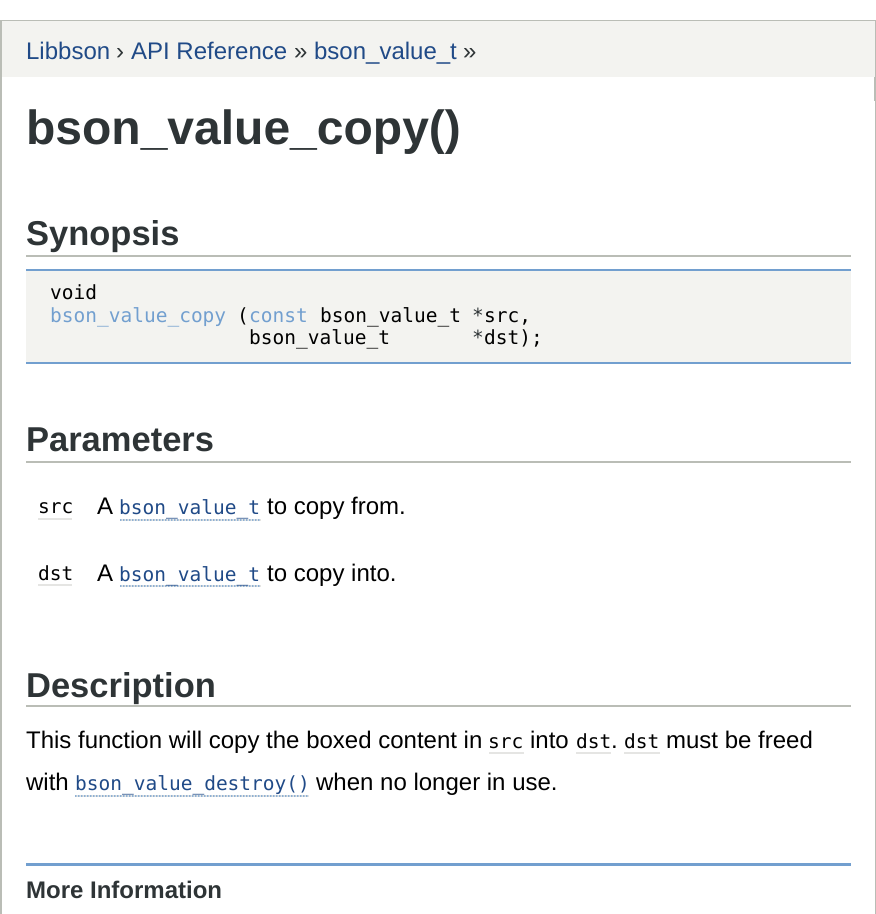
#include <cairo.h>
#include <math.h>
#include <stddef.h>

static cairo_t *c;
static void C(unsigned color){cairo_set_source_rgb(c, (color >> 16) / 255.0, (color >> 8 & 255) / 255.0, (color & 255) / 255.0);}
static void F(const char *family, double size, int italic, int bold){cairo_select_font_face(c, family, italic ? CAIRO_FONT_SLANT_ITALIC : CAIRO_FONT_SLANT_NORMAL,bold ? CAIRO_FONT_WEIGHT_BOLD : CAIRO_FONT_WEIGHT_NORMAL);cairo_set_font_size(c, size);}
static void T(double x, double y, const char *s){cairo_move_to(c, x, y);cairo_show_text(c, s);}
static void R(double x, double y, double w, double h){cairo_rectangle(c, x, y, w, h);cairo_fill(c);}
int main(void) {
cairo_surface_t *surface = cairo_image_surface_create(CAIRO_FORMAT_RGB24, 876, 914);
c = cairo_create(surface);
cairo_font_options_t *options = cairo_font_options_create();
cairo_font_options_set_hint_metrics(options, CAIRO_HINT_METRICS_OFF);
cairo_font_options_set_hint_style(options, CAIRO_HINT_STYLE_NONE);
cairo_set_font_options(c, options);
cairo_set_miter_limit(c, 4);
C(0xffffff);
cairo_paint(c);
cairo_rectangle(c,1,21,874,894);
C(0xbabdb6);
cairo_stroke(c);
C(0xf3f3f0);
R(2,21,873,56);
F("Liberation Sans",24,0,0);
C(0x204a87);
T(26,59,"Libbson");
C(0x2e3436);
T(116,59,"›");
C(0x204a87);
T(131,59,"API Reference");
C(0x2e3436);
T(294,59,"»");
C(0x204a87);
T(314,59,"bson_value_t");
C(0x2e3436);
T(463,59,"»");
C(0xffffff);
R(874,101,1,813);
F("Liberation Sans",48,0,1);
C(0x2e3436);
T(26,144,"bson_value_copy()");
C(0xbabdb6);
R(26,255,825,2);
F("Liberation Sans",34.5,0,1);
C(0x2e3436);
T(26,245,"Synopsis");
C(0xf3f3f0);
R(26,271,825,91);
C(0x729fcf);
R(26,269,825,2);
R(26,362,825,2);
F("DejaVu Sans Mono",19.5,0,0);
C(0x000000);
T(50,299,"void");
C(0x729fcf);
T(50,322,"bson_value_copy");
C(0x000000);
T(237,322,"(");
C(0x729fcf);
T(249,322,"const");
C(0x000000);
T(320,322,"bson_value_t");
C(0x2e3436);
T(472,322,"*");
C(0x000000);
T(484,322,"src,");
T(249,344,"bson_value_t");
C(0x2e3436);
T(472,344,"*");
C(0x000000);
T(484,344,"dst);");
C(0xbabdb6);
R(26,461,825,2);
F("Liberation Sans",34.5,0,1);
C(0x2e3436);
T(26,451,"Parameters");
F("DejaVu Sans Mono",19.5,0,0);
C(0x000000);
T(38,513,"src");
C(0xe5e5e3);
R(38,518,34,2);
F("Liberation Sans",24,0,0);
C(0x000000);
T(97,514,"A");
F("DejaVu Sans Mono",19.5,0,0);
C(0x204a87);
T(119,514,"bson_value_t");
C(0xe5e5e3);
R(120,519,141,2);
cairo_new_path(c);
cairo_move_to(c,120,520);
cairo_line_to(c,261,520);
C(0x729fcf);
cairo_set_line_width(c,1.5);
cairo_set_dash(c,(double[]){1.5,1.5},2,0);
cairo_stroke(c);
F("Liberation Sans",24,0,0);
C(0x000000);
T(267,514,"to copy from.");
F("DejaVu Sans Mono",19.5,0,0);
T(38,580,"dst");
C(0xe5e5e3);
R(38,584,34,2);
F("Liberation Sans",24,0,0);
C(0x000000);
T(97,581,"A");
C(0xe5e5e3);
R(120,585,141,2);
cairo_new_path(c);
cairo_move_to(c,120,586);
cairo_line_to(c,261,586);
C(0x729fcf);
cairo_stroke(c);
F("DejaVu Sans Mono",19.5,0,0);
C(0x204a87);
T(119,581,"bson_value_t");
F("Liberation Sans",24,0,0);
C(0x000000);
T(267,581,"to copy into.");
C(0xbabdb6);
R(26,705,825,2);
F("Liberation Sans",34.5,0,1);
C(0x2e3436);
T(26,697,"Description");
F("Liberation Sans",24,0,0);
C(0x000000);
T(26,748,"This function will copy the boxed content in");
F("DejaVu Sans Mono",19.5,0,0);
T(488,748,"src");
C(0xe5e5e3);
R(489,752,35,2);
F("Liberation Sans",24,0,0);
C(0x000000);
T(530,748,"into");
F("DejaVu Sans Mono",19.5,0,0);
T(576,748,"dst");
C(0xe5e5e3);
R(576,752,35,2);
F("Liberation Sans",24,0,0);
C(0x000000);
T(611,748,".");
F("DejaVu Sans Mono",19.5,0,0);
T(624,748,"dst");
C(0xe5e5e3);
R(624,752,36,2);
F("Liberation Sans",24,0,0);
C(0x000000);
T(666,748,"must be freed");
T(26,790,"with");
F("DejaVu Sans Mono",19.5,0,0);
C(0x204a87);
T(75,790,"bson_value_destroy()");
C(0xe5e5e3);
R(75,795,234,2);
cairo_new_path(c);
cairo_move_to(c,75,796);
cairo_line_to(c,309,796);
C(0x729fcf);
cairo_stroke(c);
F("Liberation Sans",24,0,0);
C(0x000000);
T(316,790,"when no longer in use.");
C(0x729fcf);
R(26,863,825,3);
F("Liberation Sans",24,0,1);
C(0x2e3436);
T(26,898,"More Information");
cairo_surface_write_to_png(surface, "o.png");
cairo_font_options_destroy(options);
cairo_destroy(c);
cairo_surface_destroy(surface);
return 0;
}
